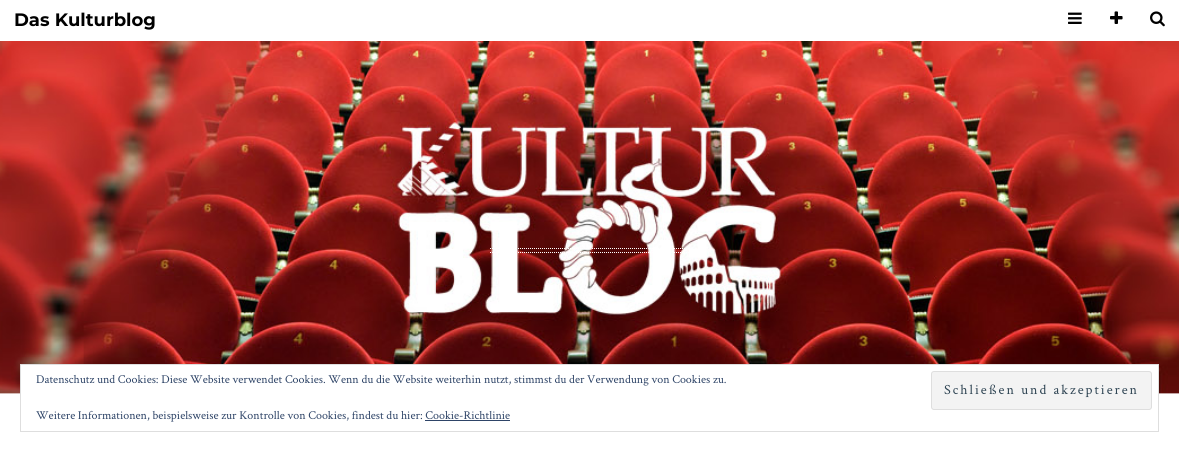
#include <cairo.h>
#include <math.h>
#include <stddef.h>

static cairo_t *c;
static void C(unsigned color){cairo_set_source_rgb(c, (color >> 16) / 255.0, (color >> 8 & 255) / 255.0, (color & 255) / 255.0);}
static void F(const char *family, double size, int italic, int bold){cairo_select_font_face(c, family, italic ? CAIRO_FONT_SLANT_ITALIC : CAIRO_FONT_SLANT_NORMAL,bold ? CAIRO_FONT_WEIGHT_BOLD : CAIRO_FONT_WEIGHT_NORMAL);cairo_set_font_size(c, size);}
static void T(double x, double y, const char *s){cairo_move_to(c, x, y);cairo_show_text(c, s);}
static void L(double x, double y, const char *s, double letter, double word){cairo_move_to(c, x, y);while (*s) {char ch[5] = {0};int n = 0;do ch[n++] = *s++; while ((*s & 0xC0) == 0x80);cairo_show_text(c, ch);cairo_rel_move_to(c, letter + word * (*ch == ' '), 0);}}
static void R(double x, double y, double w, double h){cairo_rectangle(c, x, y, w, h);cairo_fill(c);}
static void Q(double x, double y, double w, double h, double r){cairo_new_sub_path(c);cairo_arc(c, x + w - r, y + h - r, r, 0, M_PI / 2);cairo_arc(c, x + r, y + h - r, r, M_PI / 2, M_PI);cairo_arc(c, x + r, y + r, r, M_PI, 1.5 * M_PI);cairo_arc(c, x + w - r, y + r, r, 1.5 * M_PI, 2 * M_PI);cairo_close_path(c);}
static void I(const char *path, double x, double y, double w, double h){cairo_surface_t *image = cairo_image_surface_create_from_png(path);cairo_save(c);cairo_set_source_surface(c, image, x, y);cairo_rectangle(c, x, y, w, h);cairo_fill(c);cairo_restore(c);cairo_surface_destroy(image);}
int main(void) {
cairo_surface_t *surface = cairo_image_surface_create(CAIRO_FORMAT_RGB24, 1179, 452);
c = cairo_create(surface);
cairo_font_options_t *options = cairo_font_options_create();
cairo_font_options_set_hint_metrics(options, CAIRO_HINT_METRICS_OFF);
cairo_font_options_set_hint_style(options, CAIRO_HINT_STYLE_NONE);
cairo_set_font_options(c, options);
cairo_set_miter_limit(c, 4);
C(0xffffff);
cairo_paint(c);
F("Montserrat",18,0,1);
C(0x000000);
T(14,26,"Das Kulturblog");
I("1.png",1068,12,14,12);
I("2.png",1110,11,13,13);
I("3.png",1150,11,15,16);
I("4.png",0,41,1179,353);
cairo_new_path(c);
cairo_move_to(c,490,248.5);
cairo_line_to(c,690,248.5);
C(0xffffff);
cairo_set_line_width(c,1);
cairo_set_dash(c,(double[]){1,1},2,0);
cairo_stroke(c);
cairo_new_path(c);
cairo_move_to(c,490,252.5);
cairo_line_to(c,690,252.5);
cairo_stroke(c);
R(21,365,1137,29);
cairo_rectangle(c,20.5,364.5,1138,67);
C(0xdedede);
cairo_set_dash(c,NULL,0,0);
cairo_stroke(c);
F("Crimson Text",12,0,0);
C(0x2e4467);
T(36,383,"Datenschutz und Cookies: Diese Website verwendet Cookies. Wenn du die Website weiterhin nutzt, stimmst du der Verwendung von Cookies zu.");
C(0xf3f3f3);
Q(931.5,371.5,220,38,2.5);
cairo_fill_preserve(c);
C(0xdedede);
cairo_stroke(c);
F("Crimson Text",14,0,0);
C(0x2e4453);
L(944,394,"Schließen und akzeptieren",2,0);
F("Crimson Text",12,0,0);
C(0x2e4467);
T(36,419,"Weitere Informationen, beispielsweise zur Kontrolle von Cookies, findest du hier: Cookie-Richtlinie");
R(425,420,85,1);
cairo_surface_write_to_png(surface, "o.png");
cairo_font_options_destroy(options);
cairo_destroy(c);
cairo_surface_destroy(surface);
return 0;
}
